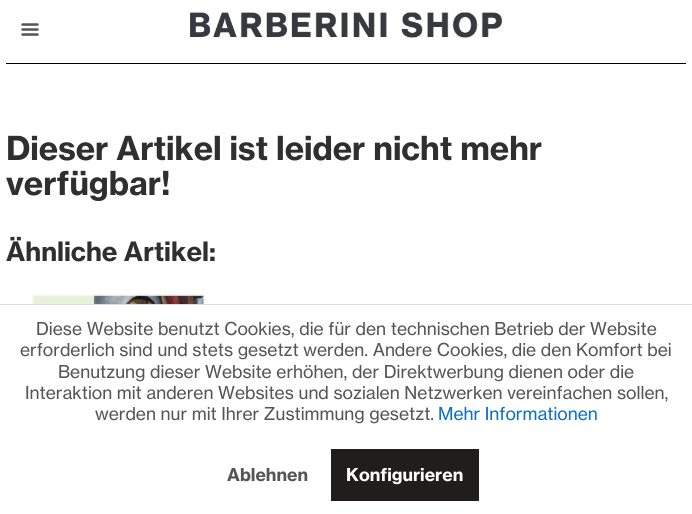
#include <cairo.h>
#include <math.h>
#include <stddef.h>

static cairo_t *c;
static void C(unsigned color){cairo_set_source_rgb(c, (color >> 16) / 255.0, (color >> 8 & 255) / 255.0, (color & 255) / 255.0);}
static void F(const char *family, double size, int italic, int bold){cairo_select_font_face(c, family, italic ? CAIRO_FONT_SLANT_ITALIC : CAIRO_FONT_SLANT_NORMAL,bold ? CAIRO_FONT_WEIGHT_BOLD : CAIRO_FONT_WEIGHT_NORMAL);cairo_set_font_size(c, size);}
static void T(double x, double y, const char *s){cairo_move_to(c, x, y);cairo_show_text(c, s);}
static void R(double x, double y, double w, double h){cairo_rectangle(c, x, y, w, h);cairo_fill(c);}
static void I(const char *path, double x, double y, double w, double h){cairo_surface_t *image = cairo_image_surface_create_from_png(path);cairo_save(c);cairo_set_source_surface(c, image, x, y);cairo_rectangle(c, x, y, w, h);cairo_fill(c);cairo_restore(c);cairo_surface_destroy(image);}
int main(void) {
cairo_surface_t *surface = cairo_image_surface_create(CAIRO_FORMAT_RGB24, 692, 514);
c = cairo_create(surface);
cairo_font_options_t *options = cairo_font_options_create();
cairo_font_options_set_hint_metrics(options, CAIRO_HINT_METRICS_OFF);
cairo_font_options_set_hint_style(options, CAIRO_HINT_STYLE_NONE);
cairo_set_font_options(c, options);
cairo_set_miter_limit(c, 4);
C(0xffffff);
cairo_paint(c);
C(0x000000);
R(6,63,680,1);
I("1.png",21,23,18,13);
I("2.png",190,12,313,26);
F("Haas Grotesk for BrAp",32.5,0,1);
C(0x2f2f2f);
T(6,160,"Dieser Artikel ist leider nicht mehr");
T(6,195,"verfügbar!");
F("Haas Grotesk for BrAp",26.25,0,1);
T(6,261,"Ähnliche Artikel:");
I("3.png",32,293,173,11);
C(0xdadae5);
R(0,304,692,1);
F("Haas Grotesk for BrAp",17.5,0,0);
C(0x555555);
T(36,335,"Diese Website benutzt Cookies, die für den technischen Betrieb der Website");
T(20,356,"erforderlich sind und stets gesetzt werden. Andere Cookies, die den Komfort bei");
T(58,378,"Benutzung dieser Website erhöhen, der Direktwerbung dienen oder die");
T(25,399,"Interaktion mit anderen Websites und sozialen Netzwerken vereinfachen sollen,");
T(95,420,"werden nur mit Ihrer Zustimmung gesetzt.");
C(0x0c6ec6);
T(438,420,"Mehr Informationen");
F("Haas Grotesk for BrAp",17.5,0,1);
C(0x555555);
T(227,481,"Ablehnen");
C(0x201d1d);
R(331,449,148,52);
C(0xffffff);
T(346,481,"Konfigurieren");
cairo_surface_write_to_png(surface, "o.png");
cairo_font_options_destroy(options);
cairo_destroy(c);
cairo_surface_destroy(surface);
return 0;
}
